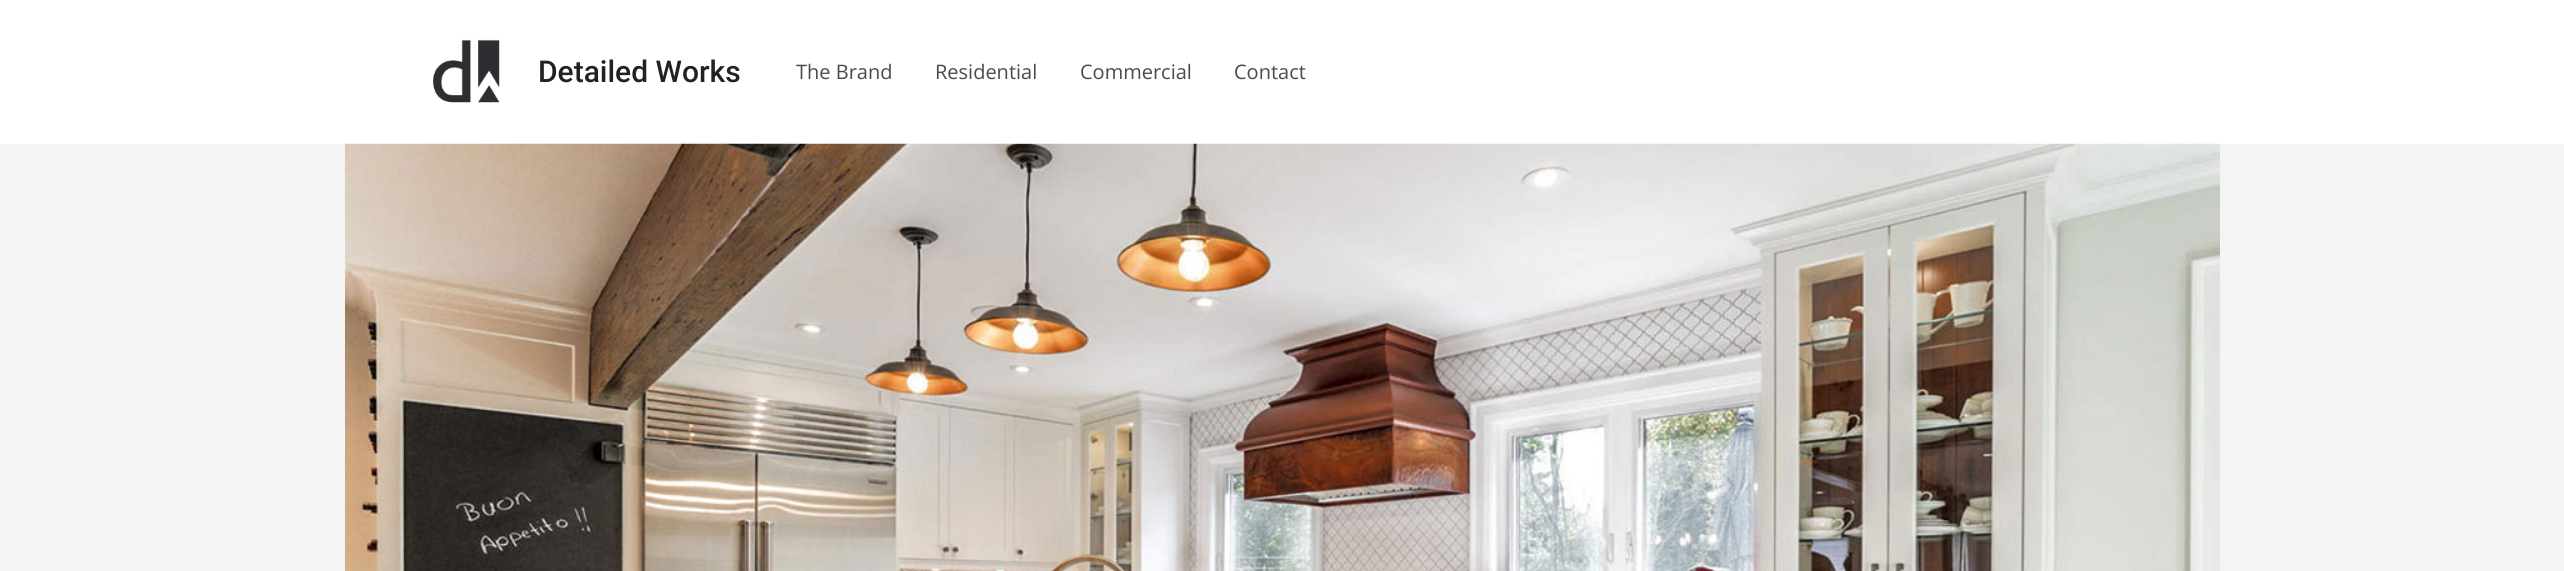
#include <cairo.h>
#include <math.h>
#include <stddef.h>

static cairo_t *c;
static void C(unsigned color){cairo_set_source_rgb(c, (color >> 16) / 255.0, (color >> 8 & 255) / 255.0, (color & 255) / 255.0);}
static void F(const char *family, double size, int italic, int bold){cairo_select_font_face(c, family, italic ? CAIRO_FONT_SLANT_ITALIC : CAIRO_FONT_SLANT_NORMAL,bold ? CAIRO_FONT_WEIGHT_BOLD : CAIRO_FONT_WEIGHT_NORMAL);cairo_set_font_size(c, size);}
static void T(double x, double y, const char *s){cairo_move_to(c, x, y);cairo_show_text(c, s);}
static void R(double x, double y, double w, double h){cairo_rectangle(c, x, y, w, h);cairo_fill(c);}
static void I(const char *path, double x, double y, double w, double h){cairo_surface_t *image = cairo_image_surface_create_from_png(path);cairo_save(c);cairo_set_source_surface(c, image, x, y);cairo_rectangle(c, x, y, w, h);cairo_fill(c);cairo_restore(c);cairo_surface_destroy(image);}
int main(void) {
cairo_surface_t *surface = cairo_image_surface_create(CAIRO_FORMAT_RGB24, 2564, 571);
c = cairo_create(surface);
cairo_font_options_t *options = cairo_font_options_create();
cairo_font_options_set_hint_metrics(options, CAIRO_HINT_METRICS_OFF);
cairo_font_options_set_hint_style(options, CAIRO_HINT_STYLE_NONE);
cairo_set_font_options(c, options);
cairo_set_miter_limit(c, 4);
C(0xf4f4f4);
cairo_paint(c);
C(0xffffff);
R(0,0,2564,144);
I("1.png",433,39,67,64);
F("Roboto Medium",30,0,0);
C(0x222222);
T(538,82,"Detailed Works");
F("Open Sans",20,0,0);
C(0x4a4a4a);
T(796,79,"The Brand");
T(935,79,"Residential");
T(1080,79,"Commercial");
T(1234,79,"Contact");
I("2.png",345,143,1875,428);
cairo_surface_write_to_png(surface, "o.png");
cairo_font_options_destroy(options);
cairo_destroy(c);
cairo_surface_destroy(surface);
return 0;
}
